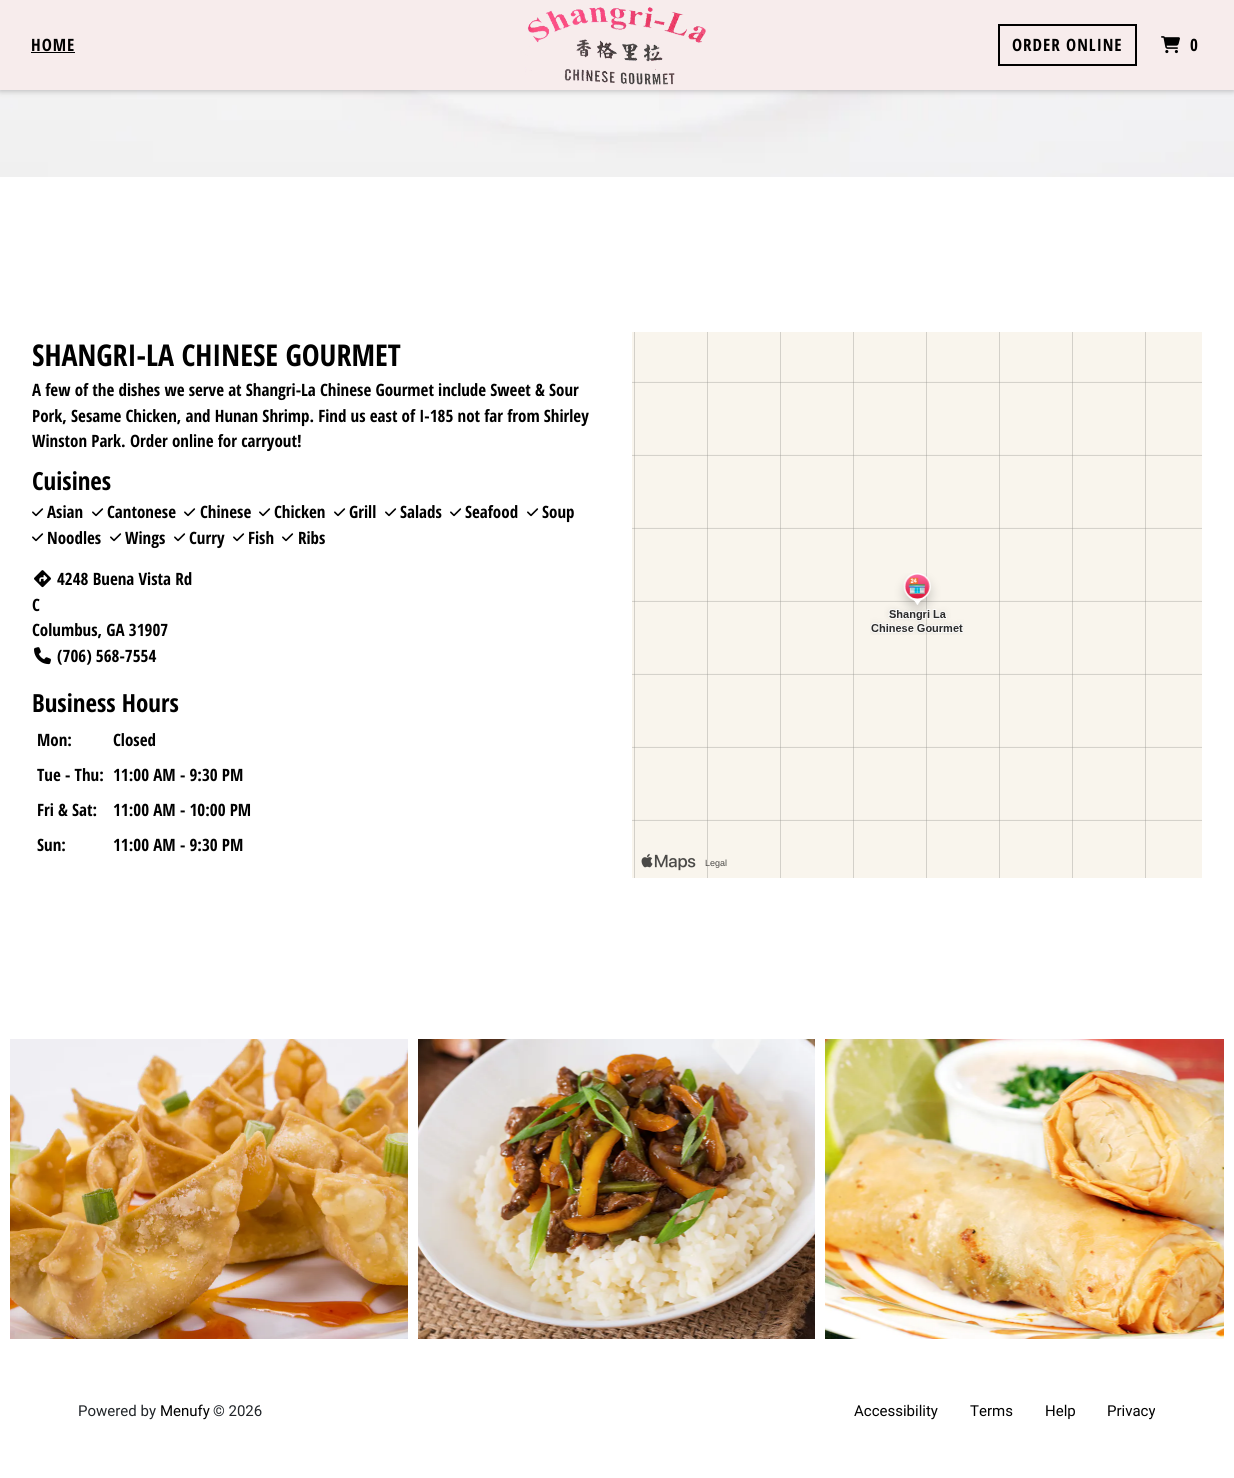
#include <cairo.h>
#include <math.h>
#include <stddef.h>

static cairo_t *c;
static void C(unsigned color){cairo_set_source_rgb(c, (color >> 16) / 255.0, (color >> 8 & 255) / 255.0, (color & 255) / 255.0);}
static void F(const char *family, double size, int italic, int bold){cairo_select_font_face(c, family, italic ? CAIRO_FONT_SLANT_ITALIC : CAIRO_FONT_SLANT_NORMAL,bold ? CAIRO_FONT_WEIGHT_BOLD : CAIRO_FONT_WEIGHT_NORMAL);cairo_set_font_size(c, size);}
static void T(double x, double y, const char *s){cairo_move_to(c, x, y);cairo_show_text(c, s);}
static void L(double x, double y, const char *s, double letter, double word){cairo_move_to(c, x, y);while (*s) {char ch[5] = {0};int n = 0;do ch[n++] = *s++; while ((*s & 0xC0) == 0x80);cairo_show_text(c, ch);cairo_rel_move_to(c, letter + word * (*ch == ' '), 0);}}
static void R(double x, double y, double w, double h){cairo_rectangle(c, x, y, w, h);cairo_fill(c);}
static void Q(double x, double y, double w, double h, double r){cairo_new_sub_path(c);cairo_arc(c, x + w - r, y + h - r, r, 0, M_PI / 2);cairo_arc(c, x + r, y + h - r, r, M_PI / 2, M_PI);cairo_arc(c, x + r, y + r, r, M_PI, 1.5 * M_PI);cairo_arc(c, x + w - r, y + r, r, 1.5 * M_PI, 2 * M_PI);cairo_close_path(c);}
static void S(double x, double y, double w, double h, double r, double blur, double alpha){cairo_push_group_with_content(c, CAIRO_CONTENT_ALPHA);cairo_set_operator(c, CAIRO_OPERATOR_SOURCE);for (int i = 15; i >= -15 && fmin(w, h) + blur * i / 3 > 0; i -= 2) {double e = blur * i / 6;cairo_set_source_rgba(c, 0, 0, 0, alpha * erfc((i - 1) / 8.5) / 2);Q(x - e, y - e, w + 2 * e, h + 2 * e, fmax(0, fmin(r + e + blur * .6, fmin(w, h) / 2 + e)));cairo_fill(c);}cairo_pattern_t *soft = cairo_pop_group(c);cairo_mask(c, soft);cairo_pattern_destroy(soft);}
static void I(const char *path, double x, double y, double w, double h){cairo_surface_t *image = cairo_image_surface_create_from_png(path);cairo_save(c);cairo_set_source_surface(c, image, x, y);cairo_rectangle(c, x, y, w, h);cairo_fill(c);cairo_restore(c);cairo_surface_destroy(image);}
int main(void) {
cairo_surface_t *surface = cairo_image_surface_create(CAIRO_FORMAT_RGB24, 1234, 1478);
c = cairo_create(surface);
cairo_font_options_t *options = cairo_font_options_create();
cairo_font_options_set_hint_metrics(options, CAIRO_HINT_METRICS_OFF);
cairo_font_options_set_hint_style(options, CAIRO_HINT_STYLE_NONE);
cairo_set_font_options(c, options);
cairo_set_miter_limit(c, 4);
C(0xffffff);
cairo_paint(c);
I("3.png",0,90,1234,87);
C(0x202124);
S(0,1,1234,90,0,3,.28);
C(0xf7ecec);
R(0,0,1234,90);
F("Open Sans Condensed",17,0,1);
C(0x000000);
L(31,51,"HOME",1,0);
R(31,52,44,1);
I("1.png",525,7,181,78);
cairo_rectangle(c,999,25,137,40);
cairo_stroke(c);
L(1012,51,"ORDER ONLINE",1,0);
I("2.png",1161,36,19,18);
L(1190,51,"0",1,0);
F("Open Sans Condensed",30,0,1);
T(32,366,"SHANGRI-LA CHINESE GOURMET");
F("Open Sans Condensed",17,0,1);
T(32,396,"A few of the dishes we serve at Shangri-La Chinese Gourmet include Sweet & Sour");
T(32,422,"Pork, Sesame Chicken, and Hunan Shrimp. Find us east of I-185 not far from Shirley");
T(32,447,"Winston Park. Order online for carryout!");
F("Open Sans Condensed",25,0,1);
T(32,490,"Cuisines");
I("4.png",32,508,12,9);
F("Open Sans Condensed",17,0,1);
T(47,518,"Asian");
I("4.png",92,508,12,9);
T(107,518,"Cantonese");
I("4.png",184,508,12,9);
T(200,518,"Chinese");
I("4.png",259,508,12,9);
T(274,518,"Chicken");
I("4.png",334,508,12,9);
T(349,518,"Grill");
I("4.png",385,508,12,9);
T(400,518,"Salads");
I("4.png",450,508,12,9);
T(465,518,"Seafood");
I("4.png",527,508,12,9);
T(542,518,"Soup");
I("4.png",32,533,12,9);
T(47,544,"Noodles");
I("4.png",110,533,12,9);
T(125,544,"Wings");
I("4.png",174,533,12,9);
T(189,544,"Curry");
I("4.png",233,533,12,9);
T(248,544,"Fish");
I("4.png",282,533,12,9);
T(298,544,"Ribs");
I("5.png",34,570,17,18);
T(57,585,"4248 Buena Vista Rd");
T(32,611,"C");
T(32,636,"Columbus, GA 31907");
I("6.png",34,647,17,18);
T(57,662,"(706) 568-7554");
F("Open Sans Condensed",25,0,1);
T(32,712,"Business Hours");
F("Open Sans Condensed",17,0,1);
T(37,746,"Mon:");
T(113,746,"Closed");
T(37,781,"Tue - Thu:");
T(113,781,"11:00 AM - 9:30 PM");
T(37,816,"Fri & Sat:");
T(113,816,"11:00 AM - 10:00 PM");
T(37,851,"Sun:");
T(113,851,"11:00 AM - 9:30 PM");
I("7.png",632,332,570,546);
I("8.png",870,573,94,62);
I("9.png",641,853,55,18);
F("Liberation Sans",9,0,0);
C(0x4b4947);
T(705,866,"Legal");
I("10.png",10,1039,398,300);
I("11.png",418,1039,397,300);
I("12.png",825,1039,399,300);
F("Roboto",15,0,0);
C(0x212529);
T(78,1416,"Powered by");
C(0x000000);
T(160,1416,"Menufy");
C(0x212529);
T(213,1416,"© 2026");
C(0x000000);
T(854,1416,"Accessibility");
T(970,1416,"Terms");
T(1045,1416,"Help");
T(1107,1416,"Privacy");
cairo_surface_write_to_png(surface, "o.png");
cairo_font_options_destroy(options);
cairo_destroy(c);
cairo_surface_destroy(surface);
return 0;
}
